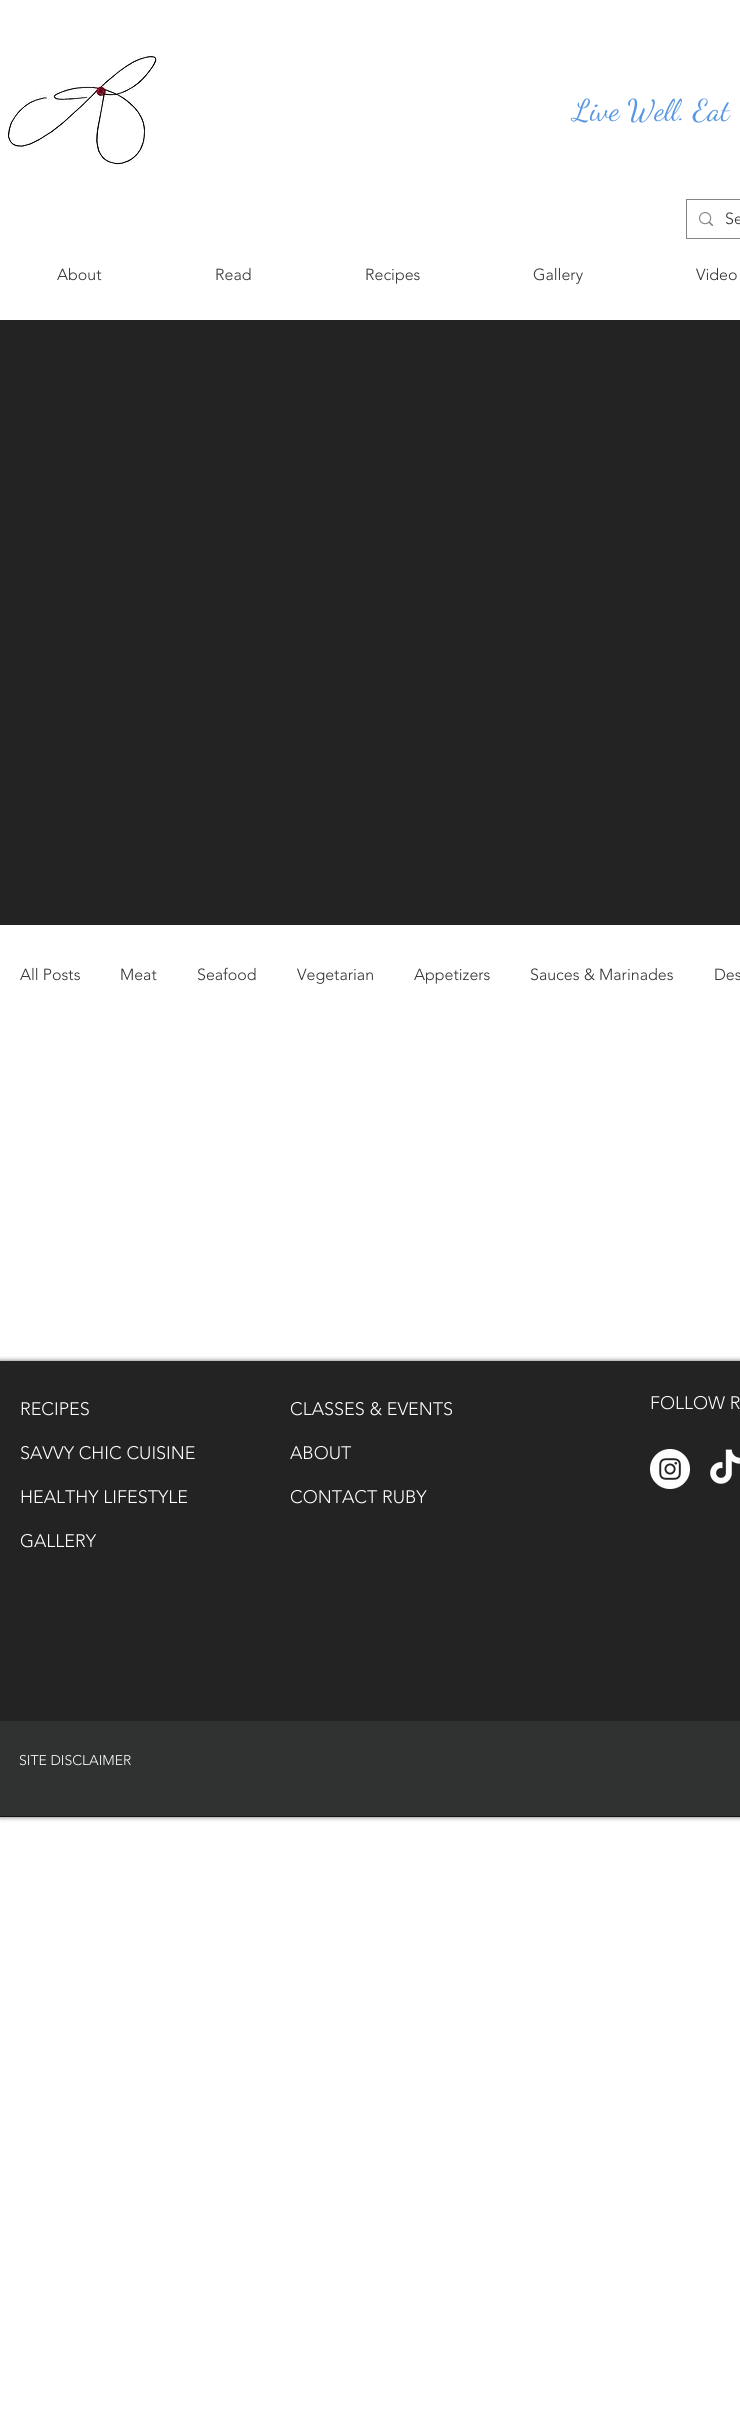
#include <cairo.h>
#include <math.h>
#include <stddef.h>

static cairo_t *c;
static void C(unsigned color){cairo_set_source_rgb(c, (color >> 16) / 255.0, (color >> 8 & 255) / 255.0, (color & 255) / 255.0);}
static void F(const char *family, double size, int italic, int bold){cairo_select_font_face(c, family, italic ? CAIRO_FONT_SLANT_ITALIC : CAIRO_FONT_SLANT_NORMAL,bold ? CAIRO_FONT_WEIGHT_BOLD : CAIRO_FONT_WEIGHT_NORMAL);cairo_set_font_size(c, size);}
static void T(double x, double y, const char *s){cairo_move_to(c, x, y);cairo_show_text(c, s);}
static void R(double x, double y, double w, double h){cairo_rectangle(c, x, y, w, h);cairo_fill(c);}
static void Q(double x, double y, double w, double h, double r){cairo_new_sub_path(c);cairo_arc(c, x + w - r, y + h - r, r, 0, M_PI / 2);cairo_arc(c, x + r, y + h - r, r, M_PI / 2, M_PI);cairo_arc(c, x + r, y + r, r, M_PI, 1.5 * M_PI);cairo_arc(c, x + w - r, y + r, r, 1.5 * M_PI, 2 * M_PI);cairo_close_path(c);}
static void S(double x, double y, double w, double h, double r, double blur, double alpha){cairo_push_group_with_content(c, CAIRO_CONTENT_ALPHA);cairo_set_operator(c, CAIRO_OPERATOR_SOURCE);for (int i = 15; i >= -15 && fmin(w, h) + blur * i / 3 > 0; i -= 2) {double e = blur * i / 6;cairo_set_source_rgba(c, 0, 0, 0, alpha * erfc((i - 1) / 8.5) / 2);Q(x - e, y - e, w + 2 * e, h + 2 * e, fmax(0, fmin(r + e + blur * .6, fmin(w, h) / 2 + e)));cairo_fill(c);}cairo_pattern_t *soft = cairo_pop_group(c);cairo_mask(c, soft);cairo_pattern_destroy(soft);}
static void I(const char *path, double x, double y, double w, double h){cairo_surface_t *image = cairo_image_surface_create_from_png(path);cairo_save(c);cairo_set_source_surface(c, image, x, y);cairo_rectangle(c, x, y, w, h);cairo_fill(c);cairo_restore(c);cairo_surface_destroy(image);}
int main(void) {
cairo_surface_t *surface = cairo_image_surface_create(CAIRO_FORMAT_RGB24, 740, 2419);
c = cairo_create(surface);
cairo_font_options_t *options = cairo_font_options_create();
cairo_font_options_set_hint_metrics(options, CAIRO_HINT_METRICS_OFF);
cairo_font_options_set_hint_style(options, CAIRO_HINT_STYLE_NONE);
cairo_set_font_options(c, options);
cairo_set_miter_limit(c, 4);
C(0xffffff);
cairo_paint(c);
I("1.png",7,55,150,110);
F("Dancing Script",30,0,0);
C(0x5897e0);
T(573,120,"Live Well. Eat");
cairo_rectangle(c,686.5,199.5,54,39);
C(0x838383);
cairo_set_line_width(c,1);
cairo_stroke(c);
I("2.png",699,212,14,14);
F("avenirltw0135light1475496 Light",16,0,0);
C(0x303131);
T(725,224,"Se");
T(57,280,"About");
T(215,280,"Read");
T(365,280,"Recipes");
T(533,280,"Gallery");
T(696,280,"Video");
C(0x242323);
R(0,320,740,605);
C(0x303131);
T(20,980,"All Posts");
T(120,980,"Meat");
T(197,980,"Seafood");
T(297,980,"Vegetarian");
T(414,980,"Appetizers");
T(530,980,"Sauces & Marinades");
T(714,980,"Des");
C(0x000000);
S(0,1361,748,456,0,2.5,.6);
C(0x303131);
R(0,1721,740,95);
C(0x131414);
R(0,1816,740,1);
C(0x242323);
R(0,1361,740,360);
F("avenirltw0135light1475496 Light",18,0,0);
C(0xffffff);
T(20,1415,"RECIPES");
T(20,1459,"SAVVY CHIC CUISINE");
T(20,1503,"HEALTHY LIFESTYLE");
T(20,1547,"GALLERY");
T(290,1415,"CLASSES & EVENTS");
T(290,1459,"ABOUT");
T(290,1503,"CONTACT RUBY");
T(650,1409,"FOLLOW R");
I("3.png",650,1449,40,40);
I("4.png",710,1449,30,35);
F("avenirltw0135light1475496 Light",14,0,0);
T(19,1765,"SITE DISCLAIMER");
cairo_surface_write_to_png(surface, "o.png");
cairo_font_options_destroy(options);
cairo_destroy(c);
cairo_surface_destroy(surface);
return 0;
}
